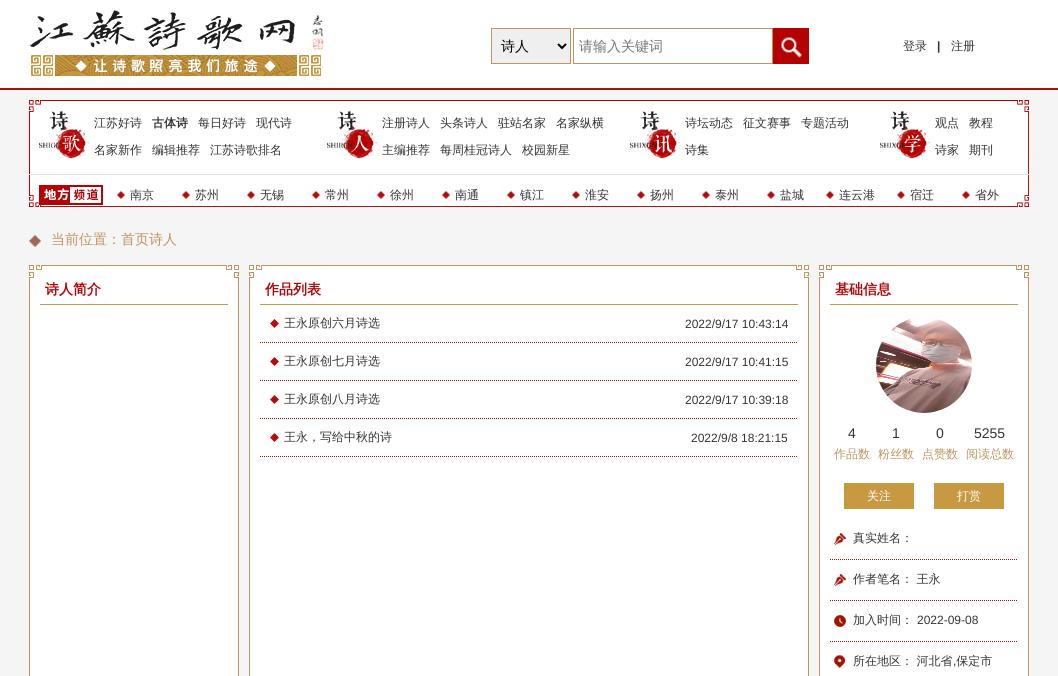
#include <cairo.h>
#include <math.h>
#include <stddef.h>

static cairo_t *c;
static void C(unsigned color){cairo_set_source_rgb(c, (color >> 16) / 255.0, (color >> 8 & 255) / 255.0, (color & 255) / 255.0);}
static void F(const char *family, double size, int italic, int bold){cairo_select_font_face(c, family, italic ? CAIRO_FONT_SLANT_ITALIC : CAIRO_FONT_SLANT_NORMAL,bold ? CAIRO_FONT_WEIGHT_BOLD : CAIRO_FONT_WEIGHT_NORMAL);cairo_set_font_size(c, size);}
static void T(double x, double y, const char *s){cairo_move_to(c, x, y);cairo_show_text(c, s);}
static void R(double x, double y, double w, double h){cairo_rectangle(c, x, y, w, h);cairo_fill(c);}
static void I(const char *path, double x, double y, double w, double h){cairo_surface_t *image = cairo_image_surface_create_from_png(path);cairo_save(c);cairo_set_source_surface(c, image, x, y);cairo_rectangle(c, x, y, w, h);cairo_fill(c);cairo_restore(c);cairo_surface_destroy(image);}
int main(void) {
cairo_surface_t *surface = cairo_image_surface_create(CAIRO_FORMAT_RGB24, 1058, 676);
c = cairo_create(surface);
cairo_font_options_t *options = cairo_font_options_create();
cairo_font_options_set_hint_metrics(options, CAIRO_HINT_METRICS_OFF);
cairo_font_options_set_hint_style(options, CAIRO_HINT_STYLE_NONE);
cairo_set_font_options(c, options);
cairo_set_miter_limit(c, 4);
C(0xf5f5f5);
cairo_paint(c);
C(0xffffff);
R(0,0,1058,88);
C(0xa11305);
R(0,88,1058,2);
I("1.png",29,10,295,66);
C(0xefefef);
cairo_rectangle(c,491.5,28.5,79,35);
cairo_fill_preserve(c);
C(0xbf945f);
cairo_set_line_width(c,1);
cairo_stroke(c);
cairo_new_path(c);
cairo_move_to(c,558,44);
cairo_line_to(c,562,48);
cairo_line_to(c,566,44);
C(0x000000);
cairo_set_line_width(c,2);
cairo_stroke(c);
F("WenQuanYi Zen Hei Medium",14,0,0);
T(501,51,"诗人");
cairo_rectangle(c,573.5,28.5,199,35);
C(0xbf945f);
cairo_set_line_width(c,1);
cairo_stroke(c);
C(0x757575);
T(579,51,"请输入关键词");
I("2.png",773,28,36,36);
F("WenQuanYi Zen Hei Medium",12,0,0);
C(0x333333);
T(903,50,"登录");
F("Liberation Sans",12,0,1);
T(937,50,"|");
F("WenQuanYi Zen Hei Medium",12,0,0);
T(951,50,"注册");
I("3.png",29,100,1000,107);
I("4.png",39,111,50,48);
T(94,127,"江苏好诗");
F("WenQuanYi Zen Hei",12,0,1);
T(152,127,"古体诗");
F("WenQuanYi Zen Hei Medium",12,0,0);
T(198,127,"每日好诗");
T(256,127,"现代诗");
T(94,154,"名家新作");
T(152,154,"编辑推荐");
T(210,154,"江苏诗歌排名");
I("5.png",327,111,50,48);
T(382,127,"注册诗人");
T(440,127,"头条诗人");
T(498,127,"驻站名家");
T(556,127,"名家纵横");
T(382,154,"主编推荐");
T(440,154,"每周桂冠诗人");
T(522,154,"校园新星");
I("6.png",630,111,50,48);
T(685,127,"诗坛动态");
T(743,127,"征文赛事");
T(801,127,"专题活动");
T(685,154,"诗集");
I("7.png",880,111,50,48);
T(935,127,"观点");
T(969,127,"教程");
T(935,154,"诗家");
T(969,154,"期刊");
C(0xe2e2e2);
R(29,174,1000,1);
I("8.png",39,185,64,20);
I("9.png",117,191,8,8);
C(0x333333);
T(130,199,"南京");
I("9.png",182,191,8,8);
T(195,199,"苏州");
I("9.png",247,191,8,8);
T(260,199,"无锡");
I("9.png",312,191,8,8);
T(325,199,"常州");
I("9.png",377,191,8,8);
T(390,199,"徐州");
I("9.png",442,191,8,8);
T(455,199,"南通");
I("9.png",507,191,8,8);
T(520,199,"镇江");
I("9.png",572,191,8,8);
T(585,199,"淮安");
I("9.png",637,191,8,8);
T(650,199,"扬州");
I("9.png",702,191,8,8);
T(715,199,"泰州");
I("9.png",767,191,8,8);
T(780,199,"盐城");
I("9.png",826,191,8,8);
T(839,199,"连云港");
I("9.png",897,191,8,8);
T(910,199,"宿迁");
I("9.png",962,191,8,8);
T(975,199,"省外");
I("10.png",29,235,12,12);
F("WenQuanYi Zen Hei Medium",14,0,0);
C(0xbf945f);
T(51,244,"当前位置：首页诗人");
C(0xffffff);
cairo_rectangle(c,29.5,265.5,209,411);
cairo_fill_preserve(c);
C(0xbf945f);
cairo_stroke(c);
I("11.png",29,265,13,13);
I("12.png",226,265,13,13);
C(0xc79a42);
R(40,304,188,1);
F("WenQuanYi Zen Hei",14,0,1);
C(0xb50405);
T(45,294,"诗人简介");
C(0xffffff);
cairo_rectangle(c,249.5,265.5,559,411);
cairo_fill_preserve(c);
C(0xbf945f);
cairo_stroke(c);
I("11.png",249,265,13,13);
I("12.png",796,265,13,13);
C(0xc79a42);
R(260,304,538,1);
C(0xb50405);
T(265,294,"作品列表");
cairo_new_path(c);
cairo_move_to(c,260,342.5);
cairo_line_to(c,798,342.5);
cairo_set_dash(c,(double[]){1,1},2,0);
cairo_stroke(c);
I("13.png",270,319,9,9);
F("WenQuanYi Zen Hei Medium",12,0,0);
C(0x333333);
T(284,327,"王永原创六月诗选");
F("Liberation Sans",12,0,0);
T(685,328,"2022/9/17 10:43:14");
cairo_new_path(c);
cairo_move_to(c,260,380.5);
cairo_line_to(c,798,380.5);
C(0xb50405);
cairo_stroke(c);
I("13.png",270,357,9,9);
F("WenQuanYi Zen Hei Medium",12,0,0);
C(0x333333);
T(284,365,"王永原创七月诗选");
F("Liberation Sans",12,0,0);
T(685,366,"2022/9/17 10:41:15");
cairo_new_path(c);
cairo_move_to(c,260,418.5);
cairo_line_to(c,798,418.5);
C(0xb50405);
cairo_stroke(c);
I("13.png",270,395,9,9);
F("WenQuanYi Zen Hei Medium",12,0,0);
C(0x333333);
T(284,403,"王永原创八月诗选");
F("Liberation Sans",12,0,0);
T(685,404,"2022/9/17 10:39:18");
cairo_new_path(c);
cairo_move_to(c,260,456.5);
cairo_line_to(c,798,456.5);
C(0xb50405);
cairo_stroke(c);
I("13.png",270,433,9,9);
F("WenQuanYi Zen Hei Medium",12,0,0);
C(0x333333);
T(284,441,"王永，写给中秋的诗");
F("Liberation Sans",12,0,0);
T(691,442,"2022/9/8 18:21:15");
C(0xffffff);
cairo_rectangle(c,819.5,265.5,209,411);
cairo_fill_preserve(c);
C(0xbf945f);
cairo_set_dash(c,NULL,0,0);
cairo_stroke(c);
I("11.png",819,265,13,13);
I("12.png",1016,265,13,13);
C(0xc79a42);
R(830,304,188,1);
F("WenQuanYi Zen Hei",14,0,1);
C(0xb50405);
T(835,294,"基础信息");
I("14.png",876,318,96,95);
F("Liberation Sans",14,0,0);
C(0x333333);
T(848,438,"4");
F("WenQuanYi Zen Hei Medium",12,0,0);
C(0xbf945f);
T(834,458,"作品数");
F("Liberation Sans",14,0,0);
C(0x333333);
T(892,438,"1");
F("WenQuanYi Zen Hei Medium",12,0,0);
C(0xbf945f);
T(878,458,"粉丝数");
F("Liberation Sans",14,0,0);
C(0x333333);
T(936,438,"0");
F("WenQuanYi Zen Hei Medium",12,0,0);
C(0xbf945f);
T(922,458,"点赞数");
F("Liberation Sans",14,0,0);
C(0x333333);
T(974,438,"5255");
F("WenQuanYi Zen Hei Medium",12,0,0);
C(0xbf945f);
T(966,458,"阅读总数");
C(0xc79a42);
R(844,483,70,26);
C(0xffffff);
T(867,500,"关注");
C(0xc79a42);
R(934,483,70,26);
C(0xffffff);
T(957,500,"打赏");
cairo_new_path(c);
cairo_move_to(c,830,559.5);
cairo_line_to(c,1018,559.5);
C(0xb50405);
cairo_set_dash(c,(double[]){1,1},2,0);
cairo_stroke(c);
I("15.png",834,533,12,12);
C(0x333333);
T(853,542,"真实姓名：");
cairo_new_path(c);
cairo_move_to(c,830,600.5);
cairo_line_to(c,1018,600.5);
C(0xb50405);
cairo_stroke(c);
I("15.png",834,574,12,12);
C(0x333333);
T(853,583,"作者笔名： 王永");
cairo_new_path(c);
cairo_move_to(c,830,641.5);
cairo_line_to(c,1018,641.5);
C(0xb50405);
cairo_stroke(c);
I("16.png",834,615,12,12);
C(0x333333);
T(853,624,"加入时间：");
F("Liberation Sans",12,0,0);
T(917,624,"2022-09-08");
I("17.png",834,655,11,13);
F("WenQuanYi Zen Hei Medium",12,0,0);
T(853,665,"所在地区： 河北省 保定市");
F("Liberation Sans",12,0,0);
T(953,665,",");
cairo_surface_write_to_png(surface, "o.png");
cairo_font_options_destroy(options);
cairo_destroy(c);
cairo_surface_destroy(surface);
return 0;
}
